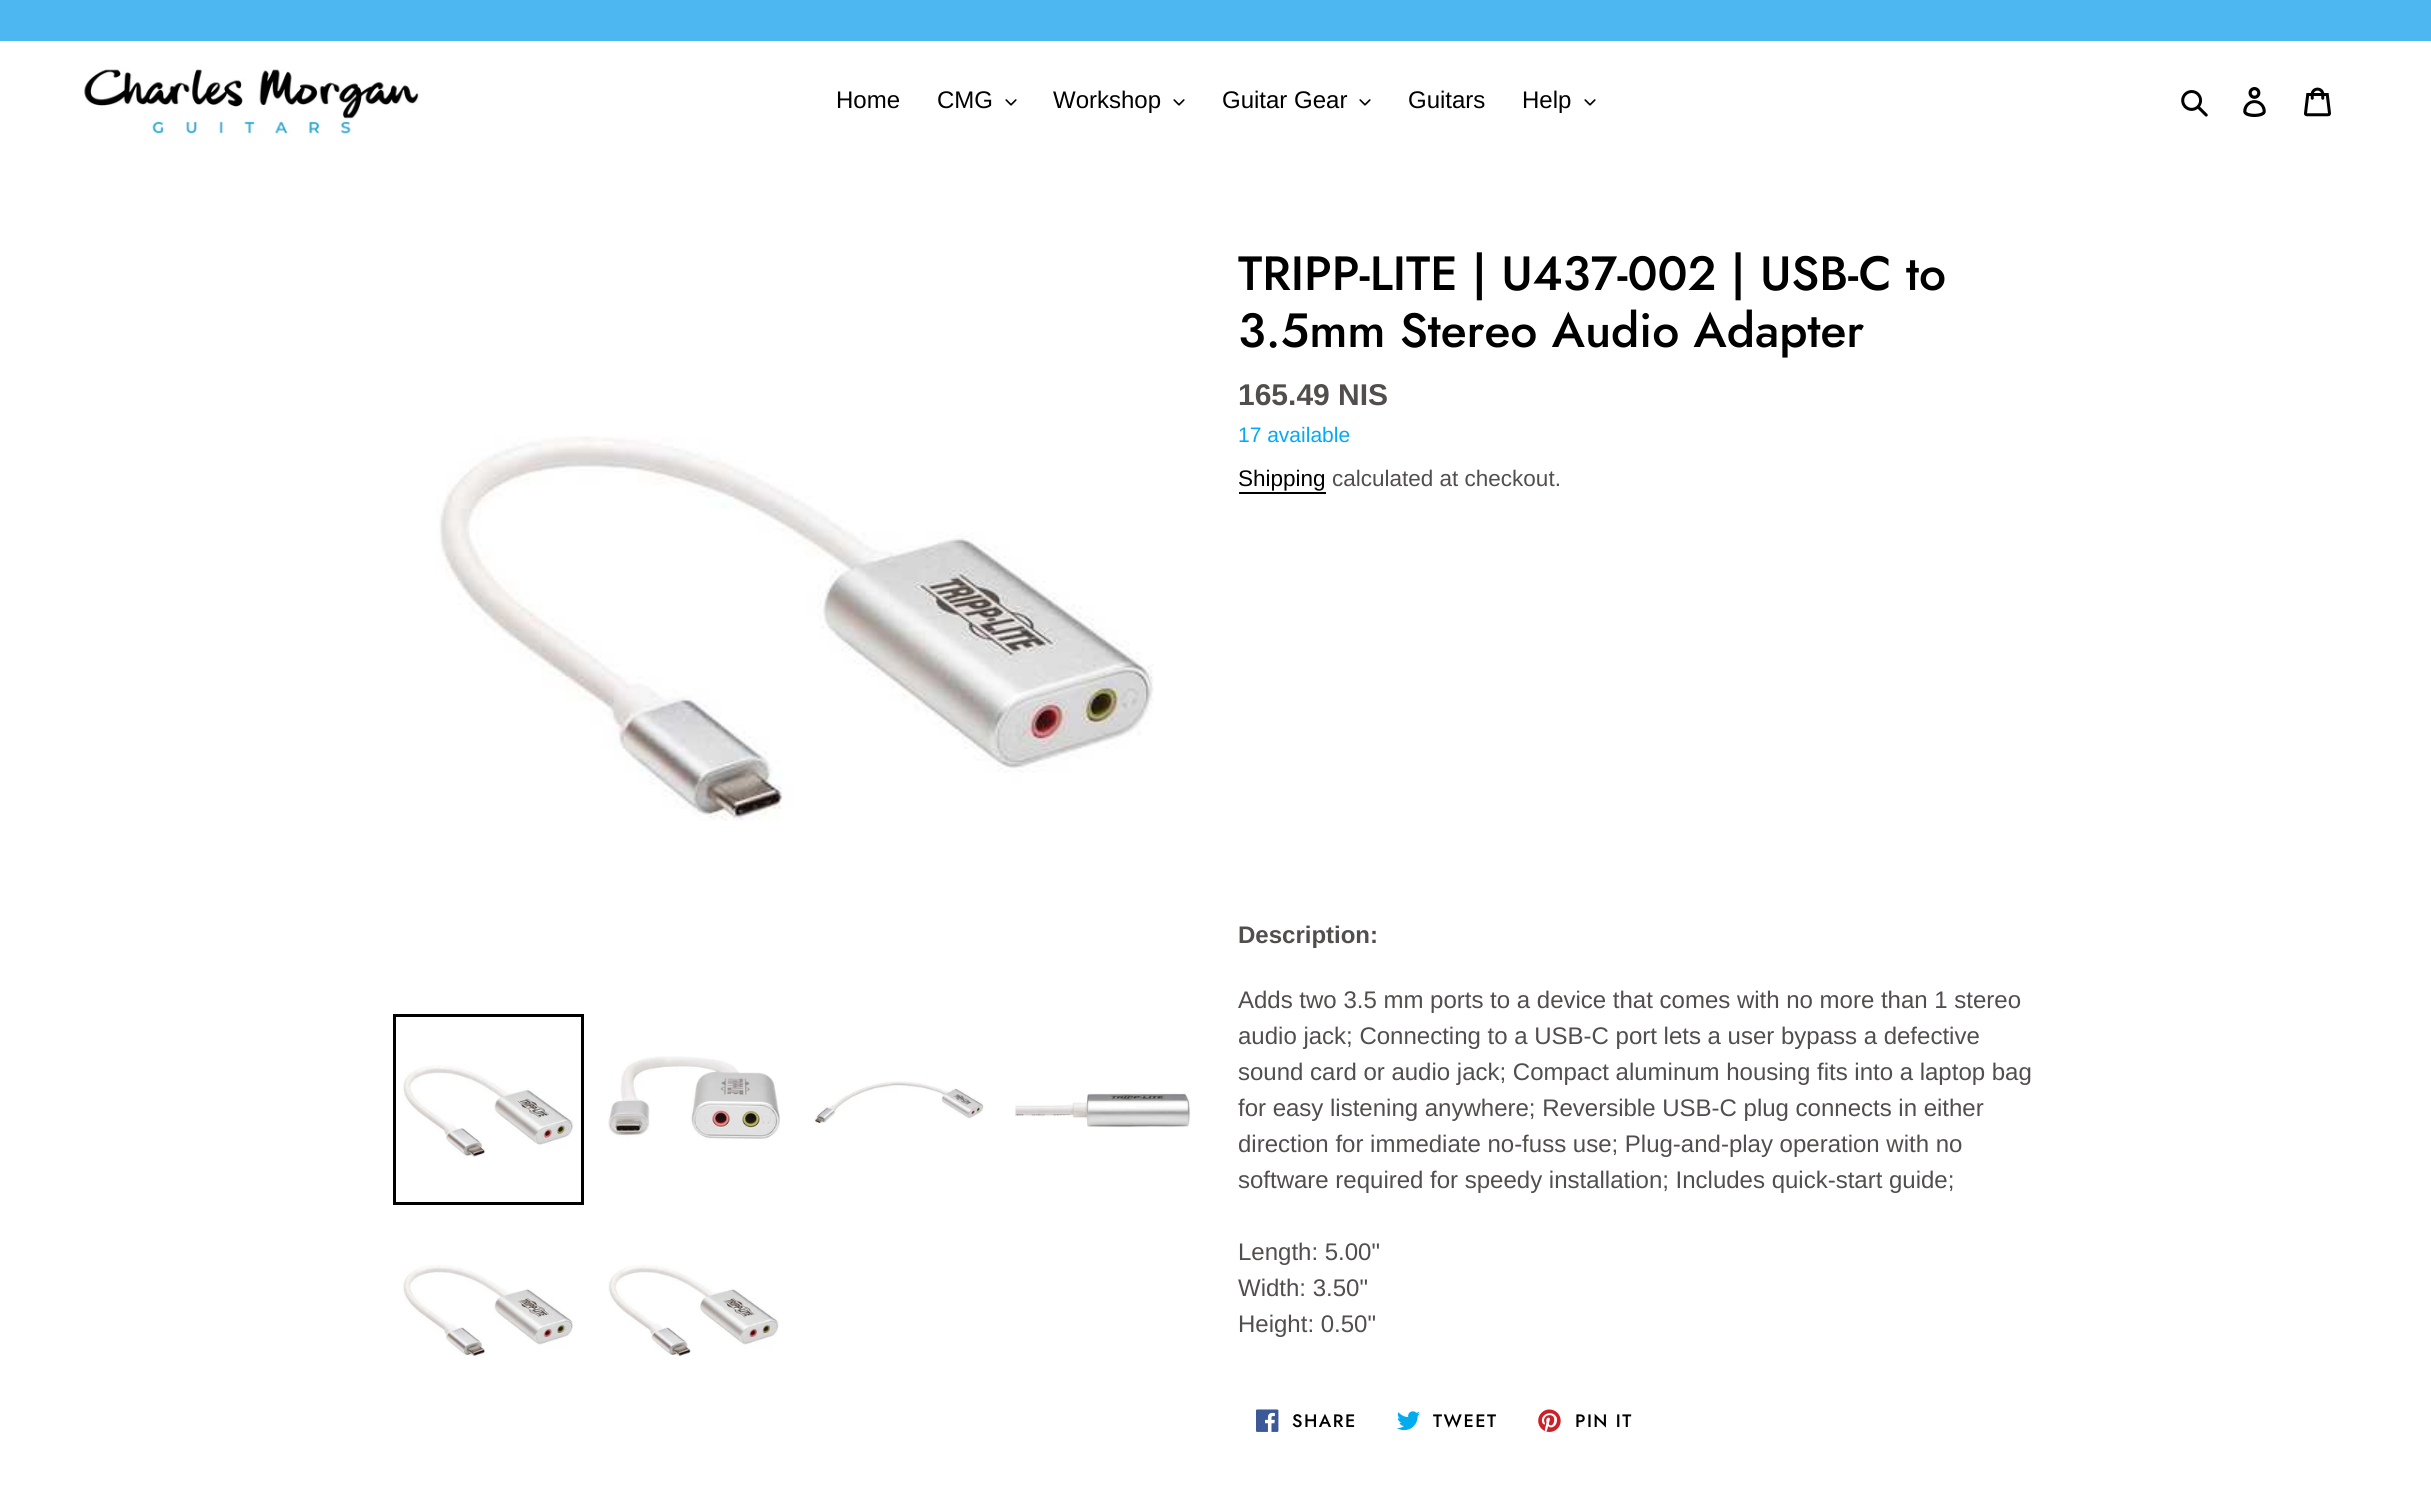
#include <cairo.h>
#include <math.h>
#include <stddef.h>

static cairo_t *c;
static void C(unsigned color){cairo_set_source_rgb(c, (color >> 16) / 255.0, (color >> 8 & 255) / 255.0, (color & 255) / 255.0);}
static void F(const char *family, double size, int italic, int bold){cairo_select_font_face(c, family, italic ? CAIRO_FONT_SLANT_ITALIC : CAIRO_FONT_SLANT_NORMAL,bold ? CAIRO_FONT_WEIGHT_BOLD : CAIRO_FONT_WEIGHT_NORMAL);cairo_set_font_size(c, size);}
static void T(double x, double y, const char *s){cairo_move_to(c, x, y);cairo_show_text(c, s);}
static void L(double x, double y, const char *s, double letter, double word){cairo_move_to(c, x, y);while (*s) {char ch[5] = {0};int n = 0;do ch[n++] = *s++; while ((*s & 0xC0) == 0x80);cairo_show_text(c, ch);cairo_rel_move_to(c, letter + word * (*ch == ' '), 0);}}
static void R(double x, double y, double w, double h){cairo_rectangle(c, x, y, w, h);cairo_fill(c);}
static void I(const char *path, double x, double y, double w, double h){cairo_surface_t *image = cairo_image_surface_create_from_png(path);cairo_save(c);cairo_set_source_surface(c, image, x, y);cairo_rectangle(c, x, y, w, h);cairo_fill(c);cairo_restore(c);cairo_surface_destroy(image);}
int main(void) {
cairo_surface_t *surface = cairo_image_surface_create(CAIRO_FORMAT_RGB24, 2431, 1490);
c = cairo_create(surface);
cairo_font_options_t *options = cairo_font_options_create();
cairo_font_options_set_hint_metrics(options, CAIRO_HINT_METRICS_OFF);
cairo_font_options_set_hint_style(options, CAIRO_HINT_STYLE_NONE);
cairo_set_font_options(c, options);
cairo_set_miter_limit(c, 4);
C(0xffffff);
cairo_paint(c);
C(0x4db7f2);
R(0,0,2431,41);
I("1.png",84,69,336,66);
F("Arimo",24,0,0);
C(0x000000);
T(836,108,"Home");
T(937,108,"CMG");
I("2.png",1005,99,12,7);
T(1053,108,"Workshop");
I("2.png",1173,99,12,7);
T(1222,108,"Guitar Gear");
I("2.png",1359,99,12,7);
T(1408,108,"Guitars");
T(1522,108,"Help");
I("2.png",1584,99,12,7);
I("3.png",2181,90,27,27);
I("4.png",2243,87,23,30);
I("5.png",2304,87,27,30);
I("6.png",437,436,717,385);
cairo_rectangle(c,394.5,1015.5,188,188);
cairo_set_line_width(c,3);
cairo_stroke(c);
I("7.png",402,1065,172,92);
I("8.png",608,1056,172,84);
I("9.png",813,1081,172,43);
I("10.png",1015,1092,176,36);
I("11.png",402,1265,171,91);
I("12.png",608,1265,171,91);
F("Jost Medium",48,0,0);
T(1238,290,"TRIPP-LITE | U437-002 | USB-C to");
T(1238,347,"3.5mm Stereo Audio Adapter");
F("Arimo",30,0,1);
C(0x534e4e);
T(1238,405,"165.49 NIS");
F("Arimo",21,0,0);
C(0x03a9f4);
T(1238,442,"17 available");
F("Arimo",22.5,0,0);
C(0x000000);
T(1238,486,"Shipping");
R(1239,492,87,2);
C(0x534e4e);
T(1332,486,"calculated at checkout.");
F("Arimo",24,0,1);
T(1238,943,"Description:");
F("Arimo",24,0,0);
T(1238,1008,"Adds two 3.5 mm ports to a device that comes with no more than 1 stereo");
T(1238,1044,"audio jack; Connecting to a USB-C port lets a user bypass a defective");
T(1238,1080,"sound card or audio jack; Compact aluminum housing fits into a laptop bag");
T(1238,1116,"for easy listening anywhere; Reversible USB-C plug connects in either");
T(1238,1152,"direction for immediate no-fuss use; Plug-and-play operation with no");
T(1238,1188,"software required for speedy installation; Includes quick-start guide;");
T(1238,1260,"Length: 5.00\"");
T(1238,1296,"Width: 3.50\"");
T(1238,1332,"Height: 0.50\"");
I("13.png",1256,1409,23,23);
F("Jost Medium",18,0,0);
C(0x000000);
L(1292,1427,"SHARE",1.5,0);
I("14.png",1397,1411,23,20);
L(1433,1427,"TWEET",1.5,0);
I("15.png",1538,1409,23,23);
L(1575,1427,"PIN IT",1.5,0);
cairo_surface_write_to_png(surface, "o.png");
cairo_font_options_destroy(options);
cairo_destroy(c);
cairo_surface_destroy(surface);
return 0;
}
